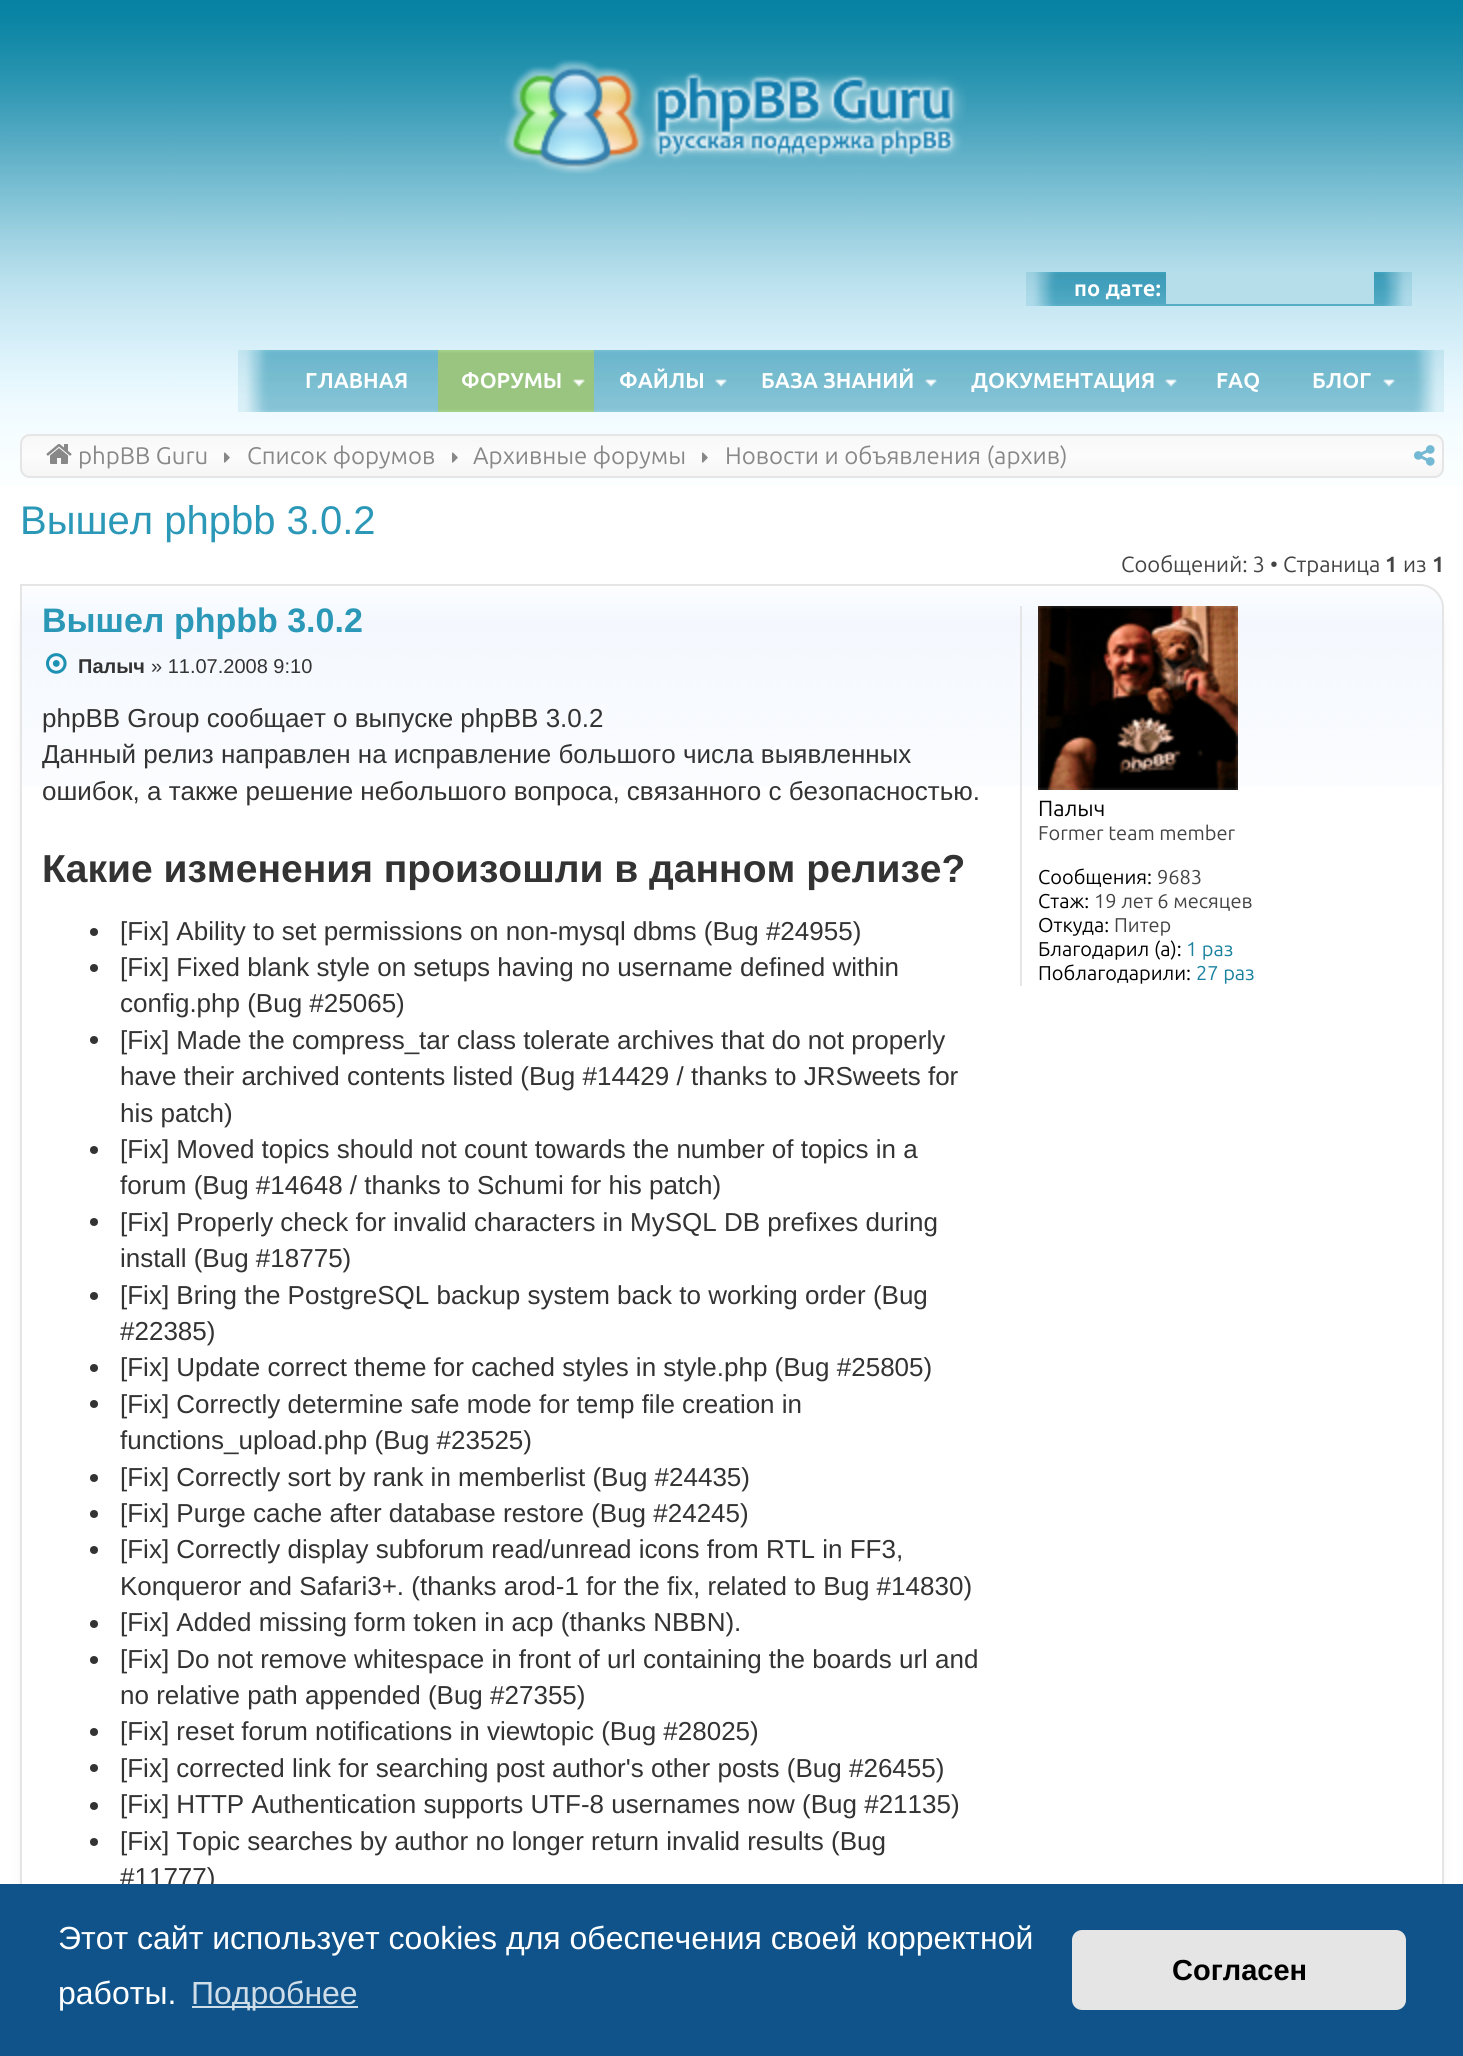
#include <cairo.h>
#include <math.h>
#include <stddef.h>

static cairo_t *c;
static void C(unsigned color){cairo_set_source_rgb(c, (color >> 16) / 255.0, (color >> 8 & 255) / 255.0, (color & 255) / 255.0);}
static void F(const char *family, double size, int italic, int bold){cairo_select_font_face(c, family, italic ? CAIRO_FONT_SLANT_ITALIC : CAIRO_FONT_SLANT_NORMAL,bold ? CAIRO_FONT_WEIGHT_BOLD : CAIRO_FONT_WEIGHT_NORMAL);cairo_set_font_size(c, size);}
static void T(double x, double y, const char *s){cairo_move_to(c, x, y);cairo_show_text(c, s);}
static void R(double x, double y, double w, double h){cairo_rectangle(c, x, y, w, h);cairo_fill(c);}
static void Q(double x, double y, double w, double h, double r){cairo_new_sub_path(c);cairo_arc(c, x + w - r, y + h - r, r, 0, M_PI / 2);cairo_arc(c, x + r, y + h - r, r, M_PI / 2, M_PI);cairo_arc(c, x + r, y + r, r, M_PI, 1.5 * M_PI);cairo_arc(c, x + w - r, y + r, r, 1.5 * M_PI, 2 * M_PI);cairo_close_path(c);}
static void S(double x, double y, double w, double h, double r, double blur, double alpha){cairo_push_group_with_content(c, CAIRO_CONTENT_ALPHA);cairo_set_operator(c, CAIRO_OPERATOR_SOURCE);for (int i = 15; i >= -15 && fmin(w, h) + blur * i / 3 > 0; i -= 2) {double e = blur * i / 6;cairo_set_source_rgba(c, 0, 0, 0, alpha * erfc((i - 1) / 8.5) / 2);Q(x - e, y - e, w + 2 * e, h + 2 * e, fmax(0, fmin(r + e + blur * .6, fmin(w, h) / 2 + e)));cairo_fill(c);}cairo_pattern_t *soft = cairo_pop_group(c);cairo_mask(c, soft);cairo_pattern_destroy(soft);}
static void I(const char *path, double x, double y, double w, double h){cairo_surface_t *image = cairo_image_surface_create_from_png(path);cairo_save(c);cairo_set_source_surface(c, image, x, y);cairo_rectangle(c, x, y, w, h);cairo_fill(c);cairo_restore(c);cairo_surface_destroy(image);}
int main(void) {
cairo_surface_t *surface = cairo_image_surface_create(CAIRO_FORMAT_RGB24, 1463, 2056);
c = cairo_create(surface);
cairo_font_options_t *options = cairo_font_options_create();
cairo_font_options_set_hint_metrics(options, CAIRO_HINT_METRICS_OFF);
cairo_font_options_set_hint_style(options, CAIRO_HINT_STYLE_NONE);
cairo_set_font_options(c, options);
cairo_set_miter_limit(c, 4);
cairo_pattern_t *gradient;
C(0xffffff);
cairo_paint(c);
I("1.png",0,0,1463,486);
I("2.png",0,1857,1463,27);
I("3.png",500,59,466,115);
I("4.png",1026,272,60,34);
I("5.png",1086,272,326,34);
F("Ubuntu",22,0,1);
C(0xffffff);
T(1074,296,"по дате:");
C(0xb5deea);
R(1166,272,208,32);
I("6.png",644,350,800,62);
I("7.png",238,350,406,62);
F("Ubuntu",21.5,0,1);
C(0xffffff);
T(305,388,"ГЛАВНАЯ");
I("8.png",438,350,156,62);
I("9.png",573,379,12,8);
T(461,388,"ФОРУМЫ");
I("10.png",715,379,12,8);
T(619,388,"ФАЙЛЫ");
I("10.png",925,379,12,8);
T(761,388,"БАЗА ЗНАНИЙ");
I("10.png",1165,379,12,8);
T(971,388,"ДОКУМЕНТАЦИЯ");
T(1216,388,"FAQ");
I("10.png",1383,379,12,8);
T(1312,388,"БЛОГ");
C(0xf5f5f5);
Q(20,434,1424,44,10);
cairo_fill(c);
cairo_save(c);
Q(20,434,1424,44,10);
cairo_clip(c);
gradient = cairo_pattern_create_linear(732,436,732,476);
cairo_pattern_add_color_stop_rgba(gradient,0,1,1,1,.2);
cairo_pattern_add_color_stop_rgba(gradient,.5,1,1,1,.7);
cairo_pattern_add_color_stop_rgba(gradient,1,1,1,1,0);
cairo_set_source(c,gradient);
cairo_pattern_destroy(gradient);
R(20,436,1424,39);
cairo_restore(c);
Q(21,435,1422,42,9);
C(0xe5e5e5);
cairo_stroke(c);
I("11.png",46,444,26,20);
F("Ubuntu",24,0,0);
C(0x888888);
T(78,464,"phpBB Guru");
I("12.png",224,452,6,11);
T(247,464,"Список форумов");
I("12.png",452,452,6,11);
T(473,464,"Архивные форумы");
I("12.png",702,452,6,11);
T(725,464,"Новости и объявления (архив)");
I("13.png",1414,445,21,21);
F("Liberation Sans",40,0,0);
C(0x2b98b7);
T(20,534,"Вышел phpbb 3.0.2");
F("Ubuntu",22,0,0);
C(0x444444);
T(1121,572,"Сообщений: 3 • Страница");
F("Ubuntu",22,0,1);
T(1385,572,"1");
F("Ubuntu",22,0,0);
T(1403,572,"из");
F("Ubuntu",22,0,1);
T(1432,572,"1");
C(0xcccccc);
S(36,616,1392,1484,8,12,1);
C(0xffffff);
cairo_new_path(c);
cairo_move_to(c,20,584);
cairo_line_to(c,1420,584);
cairo_curve_to(c,1433.5,584,1444,594.5,1444,608);
cairo_line_to(c,1444,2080);
cairo_line_to(c,42,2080);
cairo_curve_to(c,30,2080,20,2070,20,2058);
cairo_close_path(c);
cairo_fill(c);
I("14.png",22,588,1422,198);
cairo_new_path(c);
cairo_move_to(c,21,585);
cairo_line_to(c,1420,585);
cairo_curve_to(c,1432.5,585,1443,595.5,1443,608);
cairo_line_to(c,1443,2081);
cairo_line_to(c,42,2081);
cairo_curve_to(c,30.5,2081,21,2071.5,21,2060);
cairo_close_path(c);
C(0xe5e5e5);
cairo_stroke(c);
F("Liberation Sans",34,0,1);
C(0x2b98b7);
T(42,632,"Вышел phpbb 3.0.2");
I("15.png",46,653,21,21);
F("Liberation Sans",20,0,1);
C(0x333333);
T(78,673,"Палыч");
F("Liberation Sans",20,0,0);
T(151,673,"» 11.07.2008 9:10");
F("Liberation Sans",26,0,0);
T(42,727,"phpBB Group сообщает о выпуске phpBB 3.0.2");
T(42,763,"Данный релиз направлен на исправление большого числа выявленных");
T(42,800,"ошибок, а также решение небольшого вопроса, связанного с безопасностью.");
F("Liberation Sans",39,0,1);
T(42,882,"Какие изменения произошли в данном релизе?");
cairo_new_path(c);
cairo_arc(c,94,932,4,0,2 * M_PI);
cairo_fill(c);
F("Liberation Sans",26,0,0);
T(120,940,"[Fix] Ability to set permissions on non-mysql dbms (Bug #24955)");
cairo_new_path(c);
cairo_arc(c,94,968,4,0,2 * M_PI);
cairo_fill(c);
T(120,976,"[Fix] Fixed blank style on setups having no username defined within");
T(120,1012,"config.php (Bug #25065)");
cairo_new_path(c);
cairo_arc(c,94,1040,4,0,2 * M_PI);
cairo_fill(c);
T(120,1049,"[Fix] Made the compress_tar class tolerate archives that do not properly");
T(120,1085,"have their archived contents listed (Bug #14429 / thanks to JRSweets for");
T(120,1122,"his patch)");
cairo_new_path(c);
cairo_arc(c,94,1150,4,0,2 * M_PI);
cairo_fill(c);
T(120,1158,"[Fix] Moved topics should not count towards the number of topics in a");
T(120,1194,"forum (Bug #14648 / thanks to Schumi for his patch)");
cairo_new_path(c);
cairo_arc(c,94,1222,4,0,2 * M_PI);
cairo_fill(c);
T(120,1231,"[Fix] Properly check for invalid characters in MySQL DB prefixes during");
T(120,1267,"install (Bug #18775)");
cairo_new_path(c);
cairo_arc(c,94,1296,4,0,2 * M_PI);
cairo_fill(c);
T(120,1304,"[Fix] Bring the PostgreSQL backup system back to working order (Bug");
T(120,1340,"#22385)");
cairo_new_path(c);
cairo_arc(c,94,1368,4,0,2 * M_PI);
cairo_fill(c);
T(120,1376,"[Fix] Update correct theme for cached styles in style.php (Bug #25805)");
cairo_new_path(c);
cairo_arc(c,94,1404,4,0,2 * M_PI);
cairo_fill(c);
T(120,1413,"[Fix] Correctly determine safe mode for temp file creation in");
T(120,1449,"functions_upload.php (Bug #23525)");
cairo_new_path(c);
cairo_arc(c,94,1478,4,0,2 * M_PI);
cairo_fill(c);
T(120,1486,"[Fix] Correctly sort by rank in memberlist (Bug #24435)");
cairo_new_path(c);
cairo_arc(c,94,1514,4,0,2 * M_PI);
cairo_fill(c);
T(120,1522,"[Fix] Purge cache after database restore (Bug #24245)");
cairo_new_path(c);
cairo_arc(c,94,1550,4,0,2 * M_PI);
cairo_fill(c);
T(120,1558,"[Fix] Correctly display subforum read/unread icons from RTL in FF3,");
T(120,1595,"Konqueror and Safari3+. (thanks arod-1 for the fix, related to Bug #14830)");
cairo_new_path(c);
cairo_arc(c,94,1624,4,0,2 * M_PI);
cairo_fill(c);
T(120,1631,"[Fix] Added missing form token in acp (thanks NBBN).");
cairo_new_path(c);
cairo_arc(c,94,1660,4,0,2 * M_PI);
cairo_fill(c);
T(120,1668,"[Fix] Do not remove whitespace in front of url containing the boards url and");
T(120,1704,"no relative path appended (Bug #27355)");
cairo_new_path(c);
cairo_arc(c,94,1732,4,0,2 * M_PI);
cairo_fill(c);
T(120,1740,"[Fix] reset forum notifications in viewtopic (Bug #28025)");
cairo_new_path(c);
cairo_arc(c,94,1768,4,0,2 * M_PI);
cairo_fill(c);
T(120,1777,"[Fix] corrected link for searching post author's other posts (Bug #26455)");
cairo_new_path(c);
cairo_arc(c,94,1806,4,0,2 * M_PI);
cairo_fill(c);
T(120,1813,"[Fix] HTTP Authentication supports UTF-8 usernames now (Bug #21135)");
cairo_new_path(c);
cairo_arc(c,94,1842,4,0,2 * M_PI);
cairo_fill(c);
T(120,1850,"[Fix] Topic searches by author no longer return invalid results (Bug");
T(120,1886,"#11777)");
C(0xe5e5e5);
R(1020,606,2,380);
I("16.png",1038,606,200,184);
F("Ubuntu",22,0,0);
C(0x000000);
T(1038,816,"Палыч");
F("Ubuntu",20,0,0);
C(0x444444);
T(1038,840,"Former team member");
C(0x000000);
T(1038,884,"Сообщения:");
C(0x444444);
T(1157,884,"9683");
C(0x000000);
T(1038,908,"Стаж:");
C(0x444444);
T(1094,908,"19 лет 6 месяцев");
C(0x000000);
T(1038,932,"Откуда:");
C(0x444444);
T(1114,932,"Питер");
C(0x000000);
T(1038,956,"Благодарил (а):");
C(0x1a829f);
T(1186,956,"1 раз");
C(0x000000);
T(1038,980,"Поблагодарили:");
C(0x1a829f);
T(1196,980,"27 раз");
C(0x0f538a);
R(0,1884,1463,172);
F("Liberation Sans",32,0,0);
C(0xffffff);
T(58,1949,"Этот сайт использует cookies для обеспечения своей корректной");
T(58,2004,"работы.");
C(0xcfdde8);
R(192,2006,166,2);
T(191,2004,"Подробнее");
C(0xe5e5e5);
Q(1072,1930,334,80,10);
cairo_fill(c);
F("Liberation Sans",29,0,1);
C(0x000000);
T(1172,1980,"Согласен");
cairo_surface_write_to_png(surface, "o.png");
cairo_font_options_destroy(options);
cairo_destroy(c);
cairo_surface_destroy(surface);
return 0;
}
